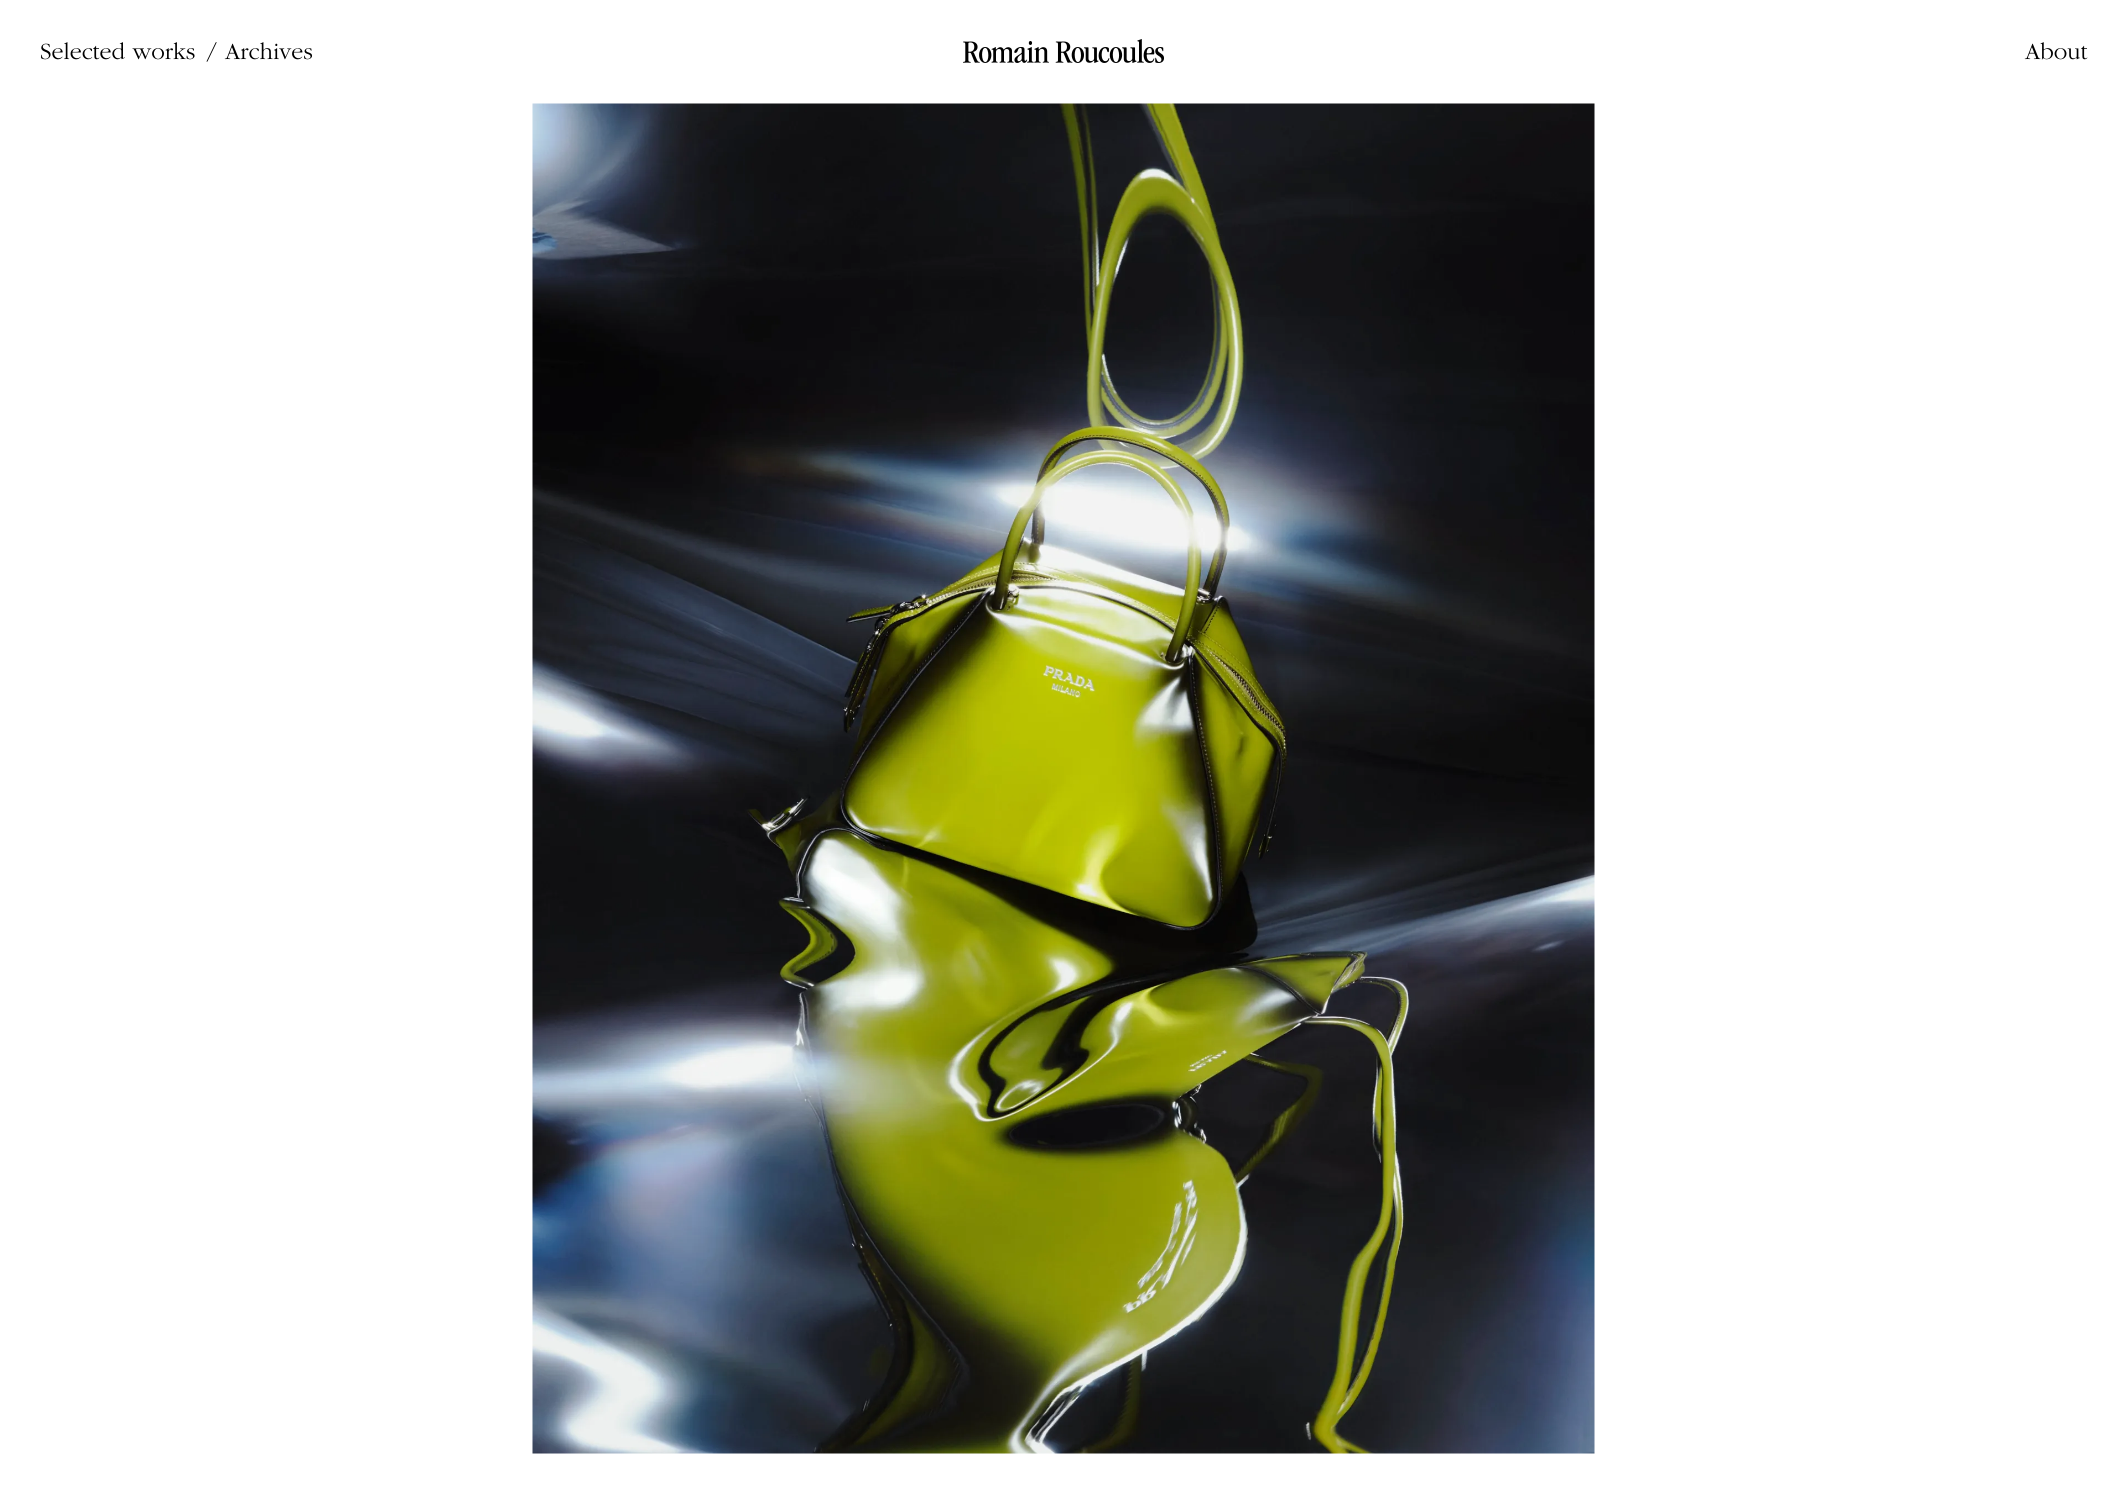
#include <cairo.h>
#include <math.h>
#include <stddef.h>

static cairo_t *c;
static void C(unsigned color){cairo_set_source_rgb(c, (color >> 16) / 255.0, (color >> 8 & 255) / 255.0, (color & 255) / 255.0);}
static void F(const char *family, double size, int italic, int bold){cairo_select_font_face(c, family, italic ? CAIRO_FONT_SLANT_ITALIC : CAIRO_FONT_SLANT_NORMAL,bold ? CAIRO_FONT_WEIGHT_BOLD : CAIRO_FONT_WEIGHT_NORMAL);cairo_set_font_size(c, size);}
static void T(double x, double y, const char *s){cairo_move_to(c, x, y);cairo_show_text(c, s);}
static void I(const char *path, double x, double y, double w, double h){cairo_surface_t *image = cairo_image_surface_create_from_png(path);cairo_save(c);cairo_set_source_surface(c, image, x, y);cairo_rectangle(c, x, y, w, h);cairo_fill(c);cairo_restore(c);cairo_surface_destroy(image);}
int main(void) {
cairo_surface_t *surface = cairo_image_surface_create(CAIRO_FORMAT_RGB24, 2127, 1493);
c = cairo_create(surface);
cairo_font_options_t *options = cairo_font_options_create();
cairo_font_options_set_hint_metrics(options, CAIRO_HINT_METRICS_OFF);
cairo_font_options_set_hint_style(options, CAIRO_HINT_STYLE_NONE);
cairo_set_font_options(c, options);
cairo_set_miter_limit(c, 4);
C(0xffffff);
cairo_paint(c);
F("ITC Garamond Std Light",24,0,0);
C(0x000000);
T(40,59,"Selected works");
T(207,59,"/");
T(225,59,"Archives");
I("1.png",963,39,201,24);
T(2025,59,"About");
I("2.png",532,103,1063,1351);
cairo_surface_write_to_png(surface, "o.png");
cairo_font_options_destroy(options);
cairo_destroy(c);
cairo_surface_destroy(surface);
return 0;
}
